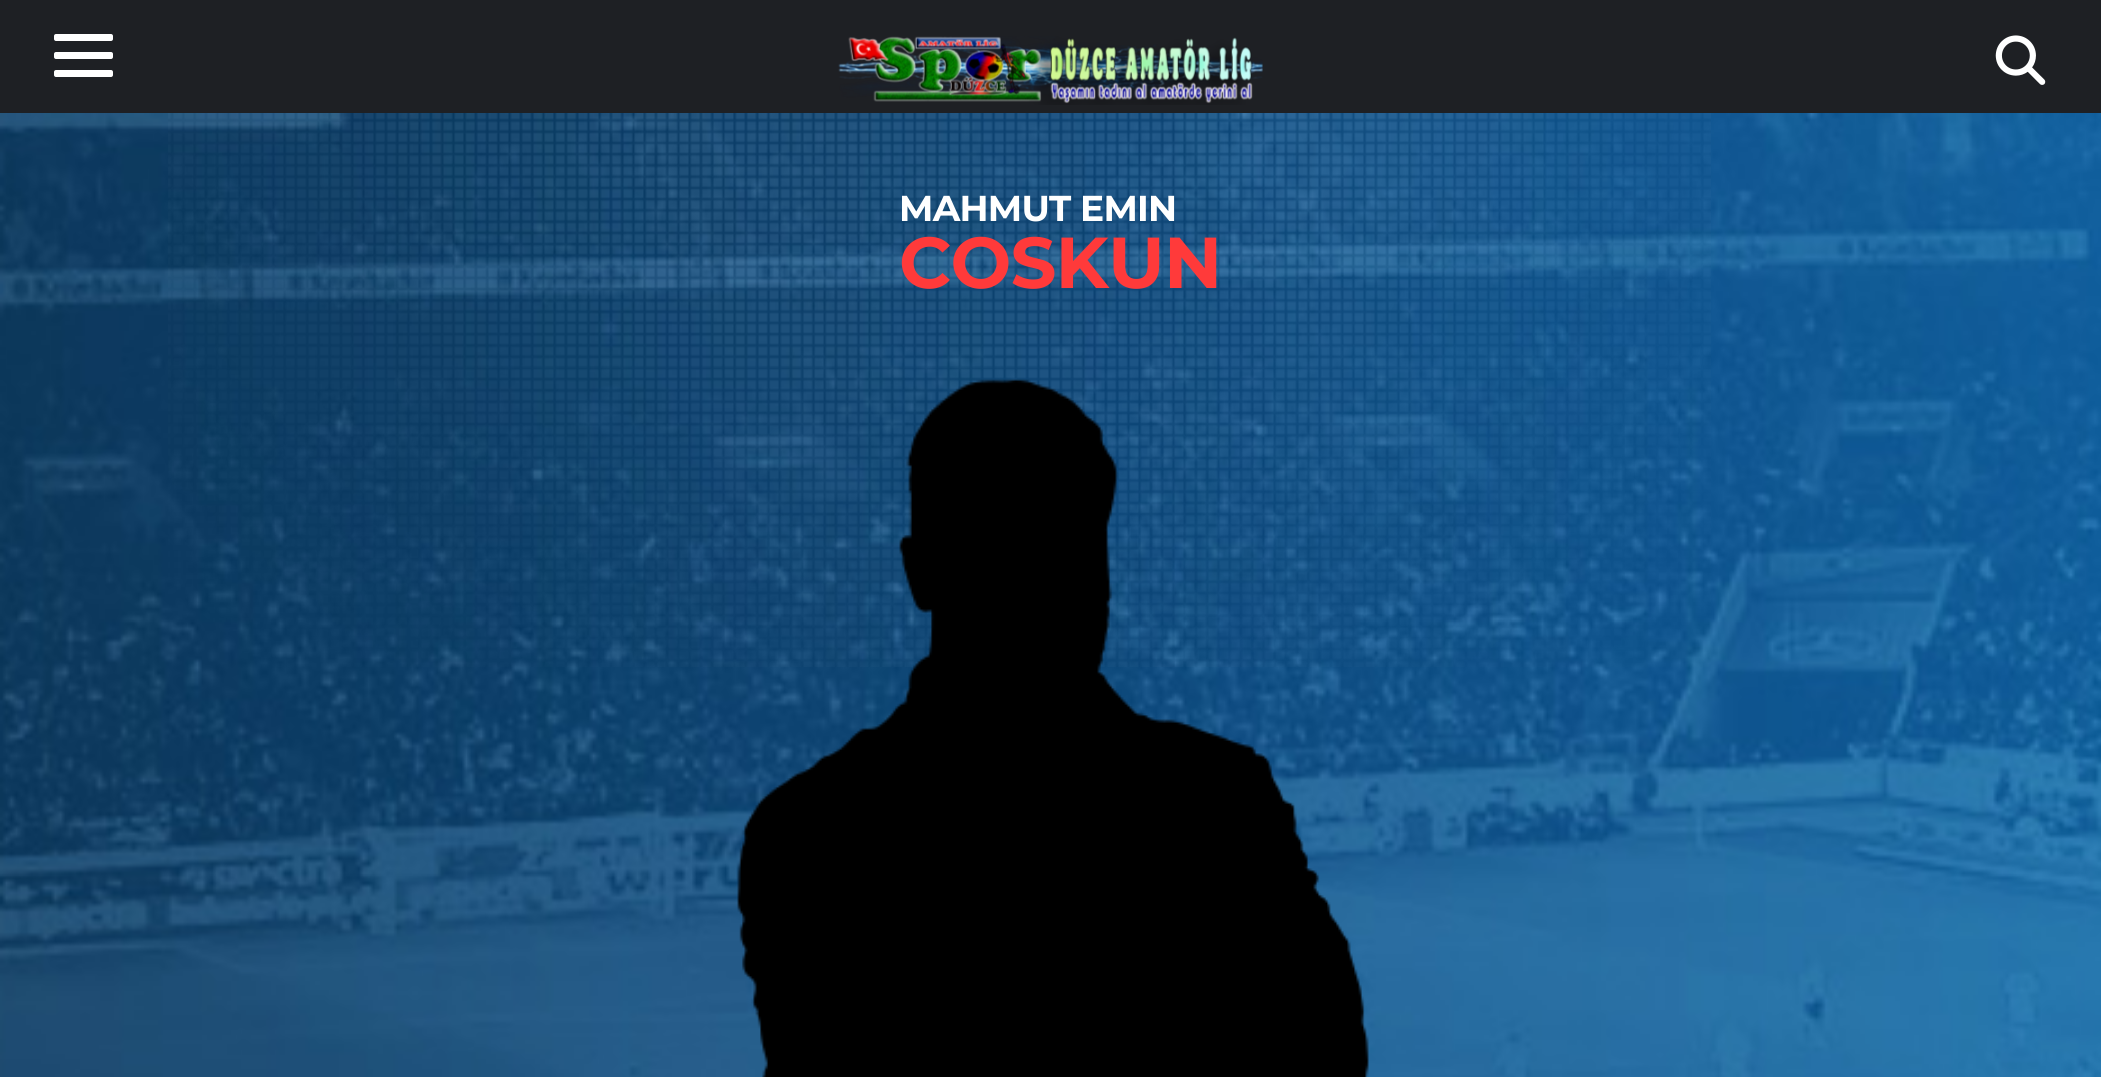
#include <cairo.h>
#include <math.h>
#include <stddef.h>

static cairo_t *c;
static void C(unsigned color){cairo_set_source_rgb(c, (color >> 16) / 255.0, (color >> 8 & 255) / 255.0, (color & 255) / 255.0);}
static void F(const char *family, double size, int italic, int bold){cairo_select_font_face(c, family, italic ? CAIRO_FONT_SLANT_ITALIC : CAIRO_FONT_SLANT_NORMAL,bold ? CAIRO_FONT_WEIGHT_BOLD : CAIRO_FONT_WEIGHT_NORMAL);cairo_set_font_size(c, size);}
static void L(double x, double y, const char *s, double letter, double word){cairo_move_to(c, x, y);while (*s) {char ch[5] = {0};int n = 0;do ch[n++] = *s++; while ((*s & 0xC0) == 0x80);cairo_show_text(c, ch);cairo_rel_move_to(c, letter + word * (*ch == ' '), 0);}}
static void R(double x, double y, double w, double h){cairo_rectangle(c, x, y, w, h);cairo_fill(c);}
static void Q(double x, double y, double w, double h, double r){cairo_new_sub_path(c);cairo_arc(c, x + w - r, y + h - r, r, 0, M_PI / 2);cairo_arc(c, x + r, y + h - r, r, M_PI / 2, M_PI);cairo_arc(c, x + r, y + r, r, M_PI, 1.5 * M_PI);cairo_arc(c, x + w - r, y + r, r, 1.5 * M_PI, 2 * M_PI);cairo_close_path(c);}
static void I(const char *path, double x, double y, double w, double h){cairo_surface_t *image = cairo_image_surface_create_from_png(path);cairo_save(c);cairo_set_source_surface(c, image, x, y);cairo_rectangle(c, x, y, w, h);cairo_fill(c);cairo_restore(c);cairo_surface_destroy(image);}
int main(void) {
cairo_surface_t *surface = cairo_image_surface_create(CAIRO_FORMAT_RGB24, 2101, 1077);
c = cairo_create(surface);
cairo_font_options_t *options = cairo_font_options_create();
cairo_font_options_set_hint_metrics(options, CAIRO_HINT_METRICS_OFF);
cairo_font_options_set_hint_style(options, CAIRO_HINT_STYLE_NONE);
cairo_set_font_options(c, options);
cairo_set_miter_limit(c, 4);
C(0xffffff);
cairo_paint(c);
C(0x1e2024);
R(0,0,2101,113);
C(0xffffff);
Q(54,34,59,7,2);
cairo_fill(c);
Q(54,52,59,7,2);
cairo_fill(c);
Q(54,70,59,7,2);
cairo_fill(c);
I("1.png",1995,35,51,50);
I("2.png",838,36,425,69);
I("3.png",0,113,2101,964);
I("4.png",168,113,1543,554);
F("Montserrat",36,0,1);
L(899,221,"MAHMUT EMIN",-.75,0);
F("Montserrat",72,0,1);
C(0xff3a3a);
L(899,288,"COSKUN",-.75,0);
I("5.png",737,379,632,698);
cairo_surface_write_to_png(surface, "o.png");
cairo_font_options_destroy(options);
cairo_destroy(c);
cairo_surface_destroy(surface);
return 0;
}
